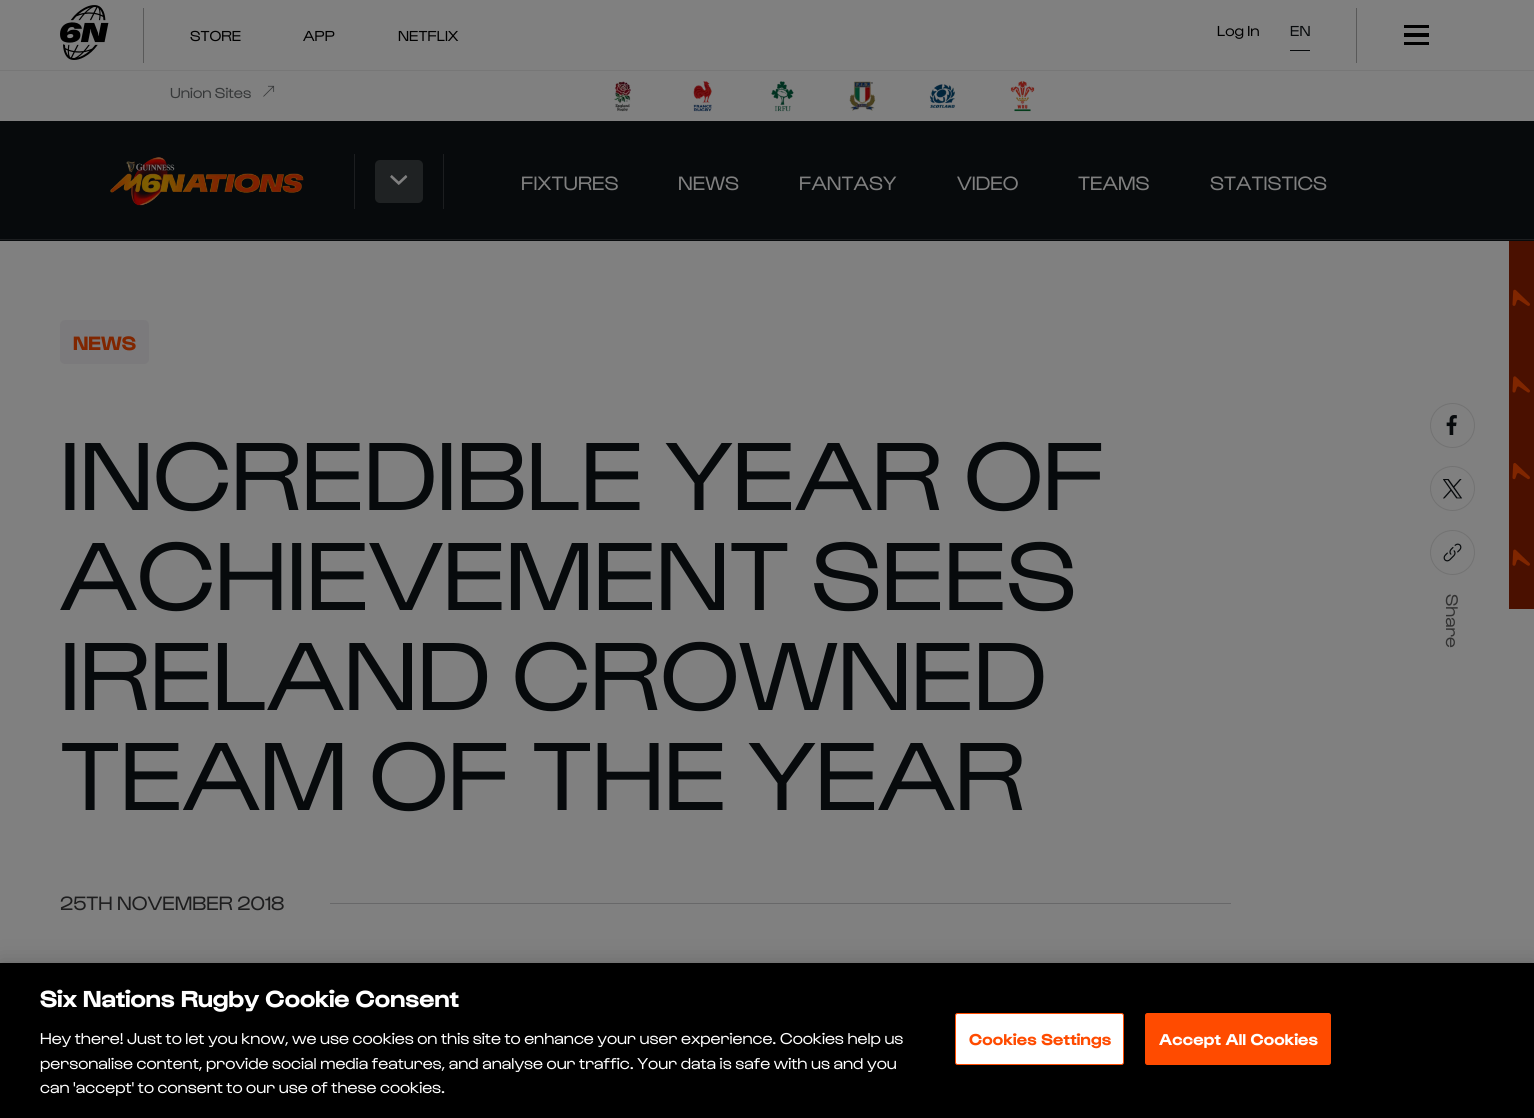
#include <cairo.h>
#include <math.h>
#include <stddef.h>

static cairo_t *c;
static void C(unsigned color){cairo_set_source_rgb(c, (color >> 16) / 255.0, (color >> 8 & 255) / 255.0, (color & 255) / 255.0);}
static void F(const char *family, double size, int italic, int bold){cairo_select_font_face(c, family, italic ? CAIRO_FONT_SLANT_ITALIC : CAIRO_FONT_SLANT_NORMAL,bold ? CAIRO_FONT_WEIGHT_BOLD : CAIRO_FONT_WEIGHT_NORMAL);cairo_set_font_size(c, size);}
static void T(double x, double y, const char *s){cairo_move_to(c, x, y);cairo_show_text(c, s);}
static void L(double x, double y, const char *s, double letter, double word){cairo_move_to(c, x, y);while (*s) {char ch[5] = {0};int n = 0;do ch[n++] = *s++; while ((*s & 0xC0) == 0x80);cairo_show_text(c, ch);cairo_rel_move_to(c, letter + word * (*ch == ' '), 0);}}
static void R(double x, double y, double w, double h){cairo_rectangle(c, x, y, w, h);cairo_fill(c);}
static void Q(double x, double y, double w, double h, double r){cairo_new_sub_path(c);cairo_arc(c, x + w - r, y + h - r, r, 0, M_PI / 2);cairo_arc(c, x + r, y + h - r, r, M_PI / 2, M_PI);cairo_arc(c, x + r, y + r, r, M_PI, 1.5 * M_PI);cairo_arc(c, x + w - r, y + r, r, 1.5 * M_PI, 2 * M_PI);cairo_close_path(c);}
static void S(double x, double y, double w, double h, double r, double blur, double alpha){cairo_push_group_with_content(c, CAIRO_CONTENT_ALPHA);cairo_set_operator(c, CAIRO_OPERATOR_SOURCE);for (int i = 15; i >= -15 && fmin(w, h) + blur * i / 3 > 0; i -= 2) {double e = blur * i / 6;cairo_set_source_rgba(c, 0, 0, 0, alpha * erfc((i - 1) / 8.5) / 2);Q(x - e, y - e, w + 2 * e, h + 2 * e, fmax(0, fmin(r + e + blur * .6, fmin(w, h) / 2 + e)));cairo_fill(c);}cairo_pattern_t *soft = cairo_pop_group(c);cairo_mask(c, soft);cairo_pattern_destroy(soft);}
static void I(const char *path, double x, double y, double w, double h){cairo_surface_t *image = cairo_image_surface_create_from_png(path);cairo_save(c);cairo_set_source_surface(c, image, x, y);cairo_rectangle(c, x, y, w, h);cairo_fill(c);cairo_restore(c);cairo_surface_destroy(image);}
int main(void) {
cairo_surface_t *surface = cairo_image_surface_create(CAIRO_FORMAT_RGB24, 1534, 1118);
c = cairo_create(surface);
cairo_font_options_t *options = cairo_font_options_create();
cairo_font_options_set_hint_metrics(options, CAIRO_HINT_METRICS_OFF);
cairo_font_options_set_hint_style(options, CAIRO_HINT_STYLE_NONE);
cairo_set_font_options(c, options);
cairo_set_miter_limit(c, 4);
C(0x808080);
cairo_paint(c);
I("1.png",60,5,49,55);
C(0x595959);
R(143,8,1,55);
F("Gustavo",15,0,0);
C(0x000000);
T(190,41,"STORE");
T(303,41,"APP");
T(398,41,"NETFLIX");
T(1217,36,"Log In");
C(0x070a0c);
R(1290,50,20,1);
T(1290,36,"EN");
C(0x595959);
R(1356,8,1,55);
C(0x000000);
R(1404,25,25,3);
R(1404,33,25,4);
R(1404,42,25,3);
C(0x777777);
R(0,70,1534,1);
C(0x363839);
T(170,98,"Union Sites");
I("2.png",263,85,12,12);
I("3.png",614,81,17,31);
I("4.png",693,81,19,31);
I("5.png",771,81,23,31);
I("6.png",849,81,27,30);
I("7.png",929,84,26,24);
I("8.png",1010,81,25,31);
C(0x070a0c);
R(0,121,1534,120);
I("9.png",110,157,194,49);
C(0x1c1e20);
R(354,154,1,55);
C(0x1f2223);
Q(375,160,48,43,5);
cairo_fill(c);
I("10.png",390,175,18,10);
C(0x1c1e20);
R(443,154,1,55);
F("Gustavo",20,0,0);
C(0x808080);
T(521,190,"FIXTURES");
T(678,190,"NEWS");
T(799,190,"FANTASY");
T(957,190,"VIDEO");
T(1078,190,"TEAMS");
T(1210,190,"STATISTICS");
C(0x1c1e20);
R(0,239,1534,1);
C(0x7b7a7c);
Q(60,320,89,44,5);
cairo_fill(c);
F("Gustavo",20,0,1);
C(0x802600);
T(73,350,"NEWS");
F("Gustavo",100,0,0);
C(0x070a0c);
T(60,510,"INCREDIBLE YEAR OF");
T(60,610,"ACHIEVEMENT SEES");
T(60,710,"IRELAND CROWNED");
T(60,810,"TEAM OF THE YEAR");
cairo_new_path(c);
cairo_arc(c,1452.5,425.5,22,0,2 * M_PI);
C(0x727272);
cairo_set_line_width(c,1);
cairo_stroke(c);
I("11.png",1446,415,11,20);
cairo_arc(c,1452.5,488.5,22,0,2 * M_PI);
cairo_stroke(c);
I("12.png",1443,479,20,20);
cairo_arc(c,1452.5,552.5,22,0,2 * M_PI);
cairo_stroke(c);
I("13.png",1443,543,19,19);
F("Gustavo",17.5,0,0);
C(0x323232);
cairo_save(c);
cairo_translate(c,1446,594);
cairo_rotate(c,90 * M_PI / 180);
T(0,0,"Share");
cairo_restore(c);
F("Gustavo",20,0,0);
C(0x1d1d1e);
T(60,910,"25TH NOVEMBER 2018");
C(0x686869);
R(330,903,901,1);
C(0x4a1000);
R(1509,241,25,368);
I("14.png",1512,289,18,277);
C(0x000000);
S(0,963,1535,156,0,11,.2);
C(0x000000);
R(0,963,1534,155);
F("Gustavo",24,0,1);
C(0xffffff);
T(40,1007,"Six Nations Rugby Cookie Consent");
F("Gustavo",16.25,0,0);
T(40,1044,"Hey there! Just to let you know, we use cookies on this site to enhance your user experience. Cookies help us");
T(40,1069,"personalise content, provide social media features, and analyse our traffic. Your data is safe with us and you");
T(40,1093,"can 'accept' to consent to our use of these cookies.");
Q(955.5,1013.5,168,51,2);
cairo_fill_preserve(c);
C(0xff4b00);
cairo_stroke(c);
F("Gustavo",16.25,0,1);
L(969,1045,"Cookies Settings",.2,0);
Q(1145.5,1013.5,185,51,2);
cairo_fill_preserve(c);
cairo_stroke(c);
C(0xffffff);
L(1159,1045,"Accept All Cookies",.2,0);
cairo_surface_write_to_png(surface, "o.png");
cairo_font_options_destroy(options);
cairo_destroy(c);
cairo_surface_destroy(surface);
return 0;
}
